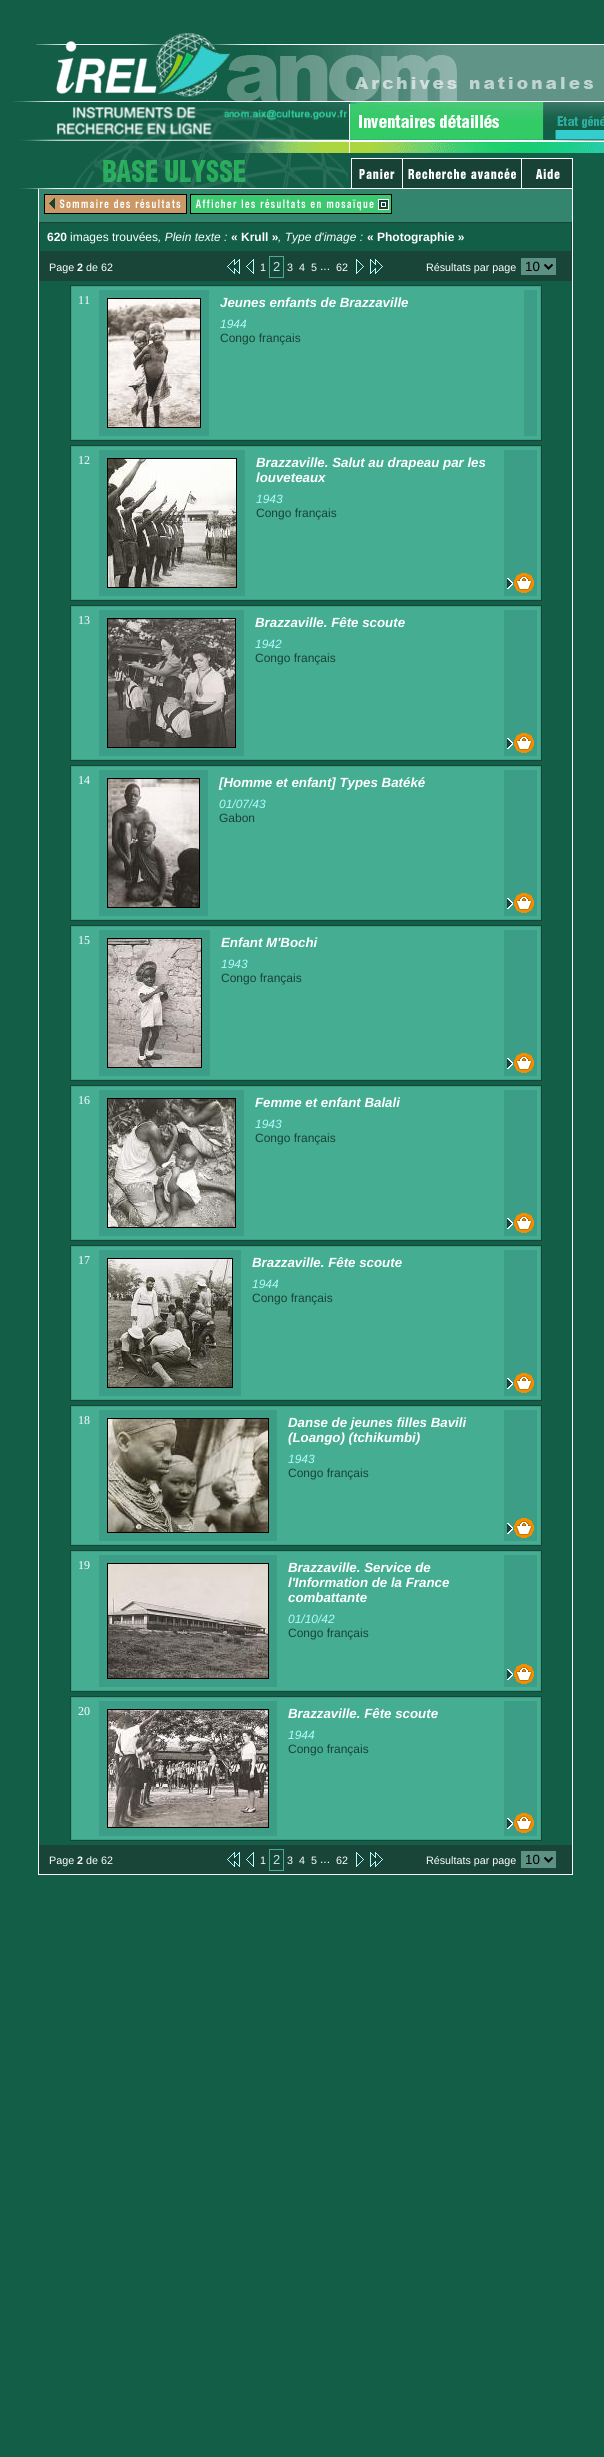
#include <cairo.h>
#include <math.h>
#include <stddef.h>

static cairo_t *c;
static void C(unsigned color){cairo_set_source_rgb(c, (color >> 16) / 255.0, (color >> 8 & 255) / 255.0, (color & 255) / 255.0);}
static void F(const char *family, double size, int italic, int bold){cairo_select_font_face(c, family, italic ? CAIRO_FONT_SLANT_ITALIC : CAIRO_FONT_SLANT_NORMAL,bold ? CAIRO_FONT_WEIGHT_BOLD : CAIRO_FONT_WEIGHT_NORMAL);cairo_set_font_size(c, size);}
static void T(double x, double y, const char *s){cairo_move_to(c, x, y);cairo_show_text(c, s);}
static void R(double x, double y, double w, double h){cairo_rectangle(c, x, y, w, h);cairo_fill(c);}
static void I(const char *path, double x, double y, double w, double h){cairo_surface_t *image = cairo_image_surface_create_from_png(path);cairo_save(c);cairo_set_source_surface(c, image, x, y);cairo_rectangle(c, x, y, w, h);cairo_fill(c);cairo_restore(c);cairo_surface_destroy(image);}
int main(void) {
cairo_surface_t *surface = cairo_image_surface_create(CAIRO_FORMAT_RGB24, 604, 2457);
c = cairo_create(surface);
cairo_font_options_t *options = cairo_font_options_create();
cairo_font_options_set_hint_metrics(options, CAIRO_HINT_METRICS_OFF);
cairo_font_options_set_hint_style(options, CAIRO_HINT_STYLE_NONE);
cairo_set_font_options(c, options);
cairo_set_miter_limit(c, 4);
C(0x125e46);
cairo_paint(c);
I("1.png",13,33,591,70);
I("2.png",19,103,329,50);
I("3.png",348,103,206,50);
I("4.png",554,103,50,50);
I("5.png",19,153,329,36);
C(0xffffff);
R(351,158,1,31);
R(348,188,4,1);
R(352,158,221,1);
R(402,158,1,31);
R(352,188,51,1);
C(0x194237);
R(352,159,50,29);
I("6.png",359,169,36,10);
C(0xffffff);
R(521,158,1,31);
R(403,188,119,1);
C(0x194237);
R(403,159,118,29);
I("7.png",408,168,108,11);
C(0xffffff);
R(572,158,1,1717);
R(522,188,51,1);
C(0x194237);
R(522,159,50,29);
I("8.png",536,169,24,10);
C(0xffffff);
R(38,1874,535,1);
R(38,189,1,1686);
C(0x33856e);
R(39,189,533,33);
I("9.png",44,194,143,20);
I("10.png",190,194,202,20);
cairo_rectangle(c,39.5,222.5,532,29);
C(0x184538);
cairo_set_line_width(c,1);
cairo_stroke(c);
F("Liberation Sans",12,0,1);
C(0xffffff);
T(47,241,"620");
F("Liberation Sans",12,0,0);
T(70,241,"images trouvées");
F("Liberation Sans",12,1,0);
T(158,241,", Plein texte :");
F("Liberation Sans",12,0,1);
T(231,241,"« Krull »");
F("Liberation Sans",12,1,0);
T(278,241,", Type d'image :");
F("Liberation Sans",12,0,1);
T(367,241,"« Photographie »");
C(0x184538);
R(39,252,533,29);
F("Liberation Sans",10.75,0,0);
C(0xffffff);
T(49,271,"Page");
F("Liberation Sans",10.75,0,1);
T(77,271,"2");
F("Liberation Sans",10.75,0,0);
T(86,271,"de 62");
I("11.png",227,259,13,15);
I("12.png",246,259,8,15);
T(260,271,"1");
cairo_rectangle(c,269.5,256.5,14,21);
C(0x45ae92);
cairo_stroke(c);
F("Liberation Sans",13,0,0);
C(0xa8f0ef);
T(273,271,"2");
F("Liberation Sans",10.75,0,0);
C(0xffffff);
T(287,271,"3");
T(299,271,"4");
T(311,271,"5");
F("Liberation Sans",12,0,0);
T(320,270,"...");
F("Liberation Sans",10.75,0,0);
T(336,271,"62");
I("13.png",356,259,8,15);
I("14.png",370,259,13,15);
T(426,271,"Résultats par page");
C(0x5c9184);
R(521,258,35,17);
cairo_new_path(c);
cairo_move_to(c,544.5,264.5);
cairo_line_to(c,548.5,268.5);
cairo_line_to(c,552.5,264.5);
C(0x000000);
cairo_set_line_width(c,2);
cairo_stroke(c);
F("Liberation Sans",13.3,0,0);
T(525,271,"10");
C(0x3c9e86);
cairo_rectangle(c,70.5,285.5,471,155);
cairo_fill_preserve(c);
C(0x184538);
cairo_set_line_width(c,1);
cairo_stroke(c);
C(0x45ae92);
R(72,287,24,152);
F("Liberation Serif",12,0,0);
C(0xffffff);
T(78,304,"11");
cairo_rectangle(c,97.5,288.5,113,149);
C(0x45ae92);
cairo_set_line_width(c,3);
cairo_stroke(c);
cairo_rectangle(c,107.5,298.5,93,129);
C(0x000000);
cairo_set_line_width(c,1);
cairo_stroke(c);
I("15.png",108,299,92,128);
C(0x45ae92);
R(212,287,309,152);
F("Liberation Sans",13.3,1,1);
C(0xffffff);
T(220,307,"Jeunes enfants de Brazzaville");
F("Liberation Sans",12,1,0);
C(0xaffbfb);
T(220,328,"1944");
F("Liberation Sans",12,0,0);
C(0x194237);
T(220,342,"Congo français");
cairo_rectangle(c,522.5,288.5,16,149);
C(0x45ae92);
cairo_set_line_width(c,3);
cairo_stroke(c);
C(0x3c9e86);
cairo_rectangle(c,70.5,445.5,471,155);
cairo_fill_preserve(c);
C(0x184538);
cairo_set_line_width(c,1);
cairo_stroke(c);
C(0x45ae92);
R(72,447,24,152);
F("Liberation Serif",12,0,0);
C(0xffffff);
T(78,464,"12");
cairo_rectangle(c,97.5,448.5,149,149);
C(0x45ae92);
cairo_set_line_width(c,3);
cairo_stroke(c);
cairo_rectangle(c,107.5,458.5,129,129);
C(0x000000);
cairo_set_line_width(c,1);
cairo_stroke(c);
I("16.png",108,459,128,128);
C(0x45ae92);
R(248,447,253,152);
F("Liberation Sans",13.3,1,1);
C(0xffffff);
T(256,467,"Brazzaville. Salut au drapeau par les");
T(256,482,"louveteaux");
F("Liberation Sans",12,1,0);
C(0xaffbfb);
T(256,503,"1943");
F("Liberation Sans",12,0,0);
C(0x194237);
T(256,517,"Congo français");
cairo_rectangle(c,502.5,448.5,36,149);
C(0x45ae92);
cairo_set_line_width(c,3);
cairo_stroke(c);
I("17.png",507,573,27,20);
C(0x3c9e86);
cairo_rectangle(c,70.5,605.5,471,155);
cairo_fill_preserve(c);
C(0x184538);
cairo_set_line_width(c,1);
cairo_stroke(c);
C(0x45ae92);
R(72,607,24,152);
F("Liberation Serif",12,0,0);
C(0xffffff);
T(78,624,"13");
cairo_rectangle(c,97.5,608.5,148,149);
C(0x45ae92);
cairo_set_line_width(c,3);
cairo_stroke(c);
cairo_rectangle(c,107.5,618.5,128,129);
C(0x000000);
cairo_set_line_width(c,1);
cairo_stroke(c);
I("18.png",108,619,127,128);
C(0x45ae92);
R(247,607,254,152);
F("Liberation Sans",13.3,1,1);
C(0xffffff);
T(255,627,"Brazzaville. Fête scoute");
F("Liberation Sans",12,1,0);
C(0xaffbfb);
T(255,648,"1942");
F("Liberation Sans",12,0,0);
C(0x194237);
T(255,662,"Congo français");
cairo_rectangle(c,502.5,608.5,36,149);
C(0x45ae92);
cairo_set_line_width(c,3);
cairo_stroke(c);
I("17.png",507,733,27,20);
C(0x3c9e86);
cairo_rectangle(c,70.5,765.5,471,155);
cairo_fill_preserve(c);
C(0x184538);
cairo_set_line_width(c,1);
cairo_stroke(c);
C(0x45ae92);
R(72,767,24,152);
F("Liberation Serif",12,0,0);
C(0xffffff);
T(78,784,"14");
cairo_rectangle(c,97.5,768.5,112,149);
C(0x45ae92);
cairo_set_line_width(c,3);
cairo_stroke(c);
cairo_rectangle(c,107.5,778.5,92,129);
C(0x000000);
cairo_set_line_width(c,1);
cairo_stroke(c);
I("19.png",108,779,91,128);
C(0x45ae92);
R(211,767,290,152);
F("Liberation Sans",13.3,1,1);
C(0xffffff);
T(219,787,"[Homme et enfant] Types Batéké");
F("Liberation Sans",12,1,0);
C(0xaffbfb);
T(219,808,"01/07/43");
F("Liberation Sans",12,0,0);
C(0x194237);
T(219,822,"Gabon");
cairo_rectangle(c,502.5,768.5,36,149);
C(0x45ae92);
cairo_set_line_width(c,3);
cairo_stroke(c);
I("17.png",507,893,27,20);
C(0x3c9e86);
cairo_rectangle(c,70.5,925.5,471,155);
cairo_fill_preserve(c);
C(0x184538);
cairo_set_line_width(c,1);
cairo_stroke(c);
C(0x45ae92);
R(72,927,24,152);
F("Liberation Serif",12,0,0);
C(0xffffff);
T(78,944,"15");
cairo_rectangle(c,97.5,928.5,114,149);
C(0x45ae92);
cairo_set_line_width(c,3);
cairo_stroke(c);
cairo_rectangle(c,107.5,938.5,94,129);
C(0x000000);
cairo_set_line_width(c,1);
cairo_stroke(c);
I("20.png",108,939,93,128);
C(0x45ae92);
R(213,927,288,152);
F("Liberation Sans",13.3,1,1);
C(0xffffff);
T(221,947,"Enfant M'Bochi");
F("Liberation Sans",12,1,0);
C(0xaffbfb);
T(221,968,"1943");
F("Liberation Sans",12,0,0);
C(0x194237);
T(221,982,"Congo français");
cairo_rectangle(c,502.5,928.5,36,149);
C(0x45ae92);
cairo_set_line_width(c,3);
cairo_stroke(c);
I("17.png",507,1053,27,20);
C(0x3c9e86);
cairo_rectangle(c,70.5,1085.5,471,155);
cairo_fill_preserve(c);
C(0x184538);
cairo_set_line_width(c,1);
cairo_stroke(c);
C(0x45ae92);
R(72,1087,24,152);
F("Liberation Serif",12,0,0);
C(0xffffff);
T(78,1104,"16");
cairo_rectangle(c,97.5,1088.5,148,149);
C(0x45ae92);
cairo_set_line_width(c,3);
cairo_stroke(c);
cairo_rectangle(c,107.5,1098.5,128,129);
C(0x000000);
cairo_set_line_width(c,1);
cairo_stroke(c);
I("21.png",108,1099,127,128);
C(0x45ae92);
R(247,1087,254,152);
F("Liberation Sans",13.3,1,1);
C(0xffffff);
T(255,1107,"Femme et enfant Balali");
F("Liberation Sans",12,1,0);
C(0xaffbfb);
T(255,1128,"1943");
F("Liberation Sans",12,0,0);
C(0x194237);
T(255,1142,"Congo français");
cairo_rectangle(c,502.5,1088.5,36,149);
C(0x45ae92);
cairo_set_line_width(c,3);
cairo_stroke(c);
I("17.png",507,1213,27,20);
C(0x3c9e86);
cairo_rectangle(c,70.5,1245.5,471,155);
cairo_fill_preserve(c);
C(0x184538);
cairo_set_line_width(c,1);
cairo_stroke(c);
C(0x45ae92);
R(72,1247,24,152);
F("Liberation Serif",12,0,0);
C(0xffffff);
T(78,1264,"17");
cairo_rectangle(c,97.5,1248.5,145,149);
C(0x45ae92);
cairo_set_line_width(c,3);
cairo_stroke(c);
cairo_rectangle(c,107.5,1258.5,125,129);
C(0x000000);
cairo_set_line_width(c,1);
cairo_stroke(c);
I("22.png",108,1259,124,128);
C(0x45ae92);
R(244,1247,257,152);
F("Liberation Sans",13.3,1,1);
C(0xffffff);
T(252,1267,"Brazzaville. Fête scoute");
F("Liberation Sans",12,1,0);
C(0xaffbfb);
T(252,1288,"1944");
F("Liberation Sans",12,0,0);
C(0x194237);
T(252,1302,"Congo français");
cairo_rectangle(c,502.5,1248.5,36,149);
C(0x45ae92);
cairo_set_line_width(c,3);
cairo_stroke(c);
I("17.png",507,1373,27,20);
C(0x3c9e86);
cairo_rectangle(c,70.5,1405.5,471,140);
cairo_fill_preserve(c);
C(0x184538);
cairo_set_line_width(c,1);
cairo_stroke(c);
C(0x45ae92);
R(72,1407,24,137);
F("Liberation Serif",12,0,0);
C(0xffffff);
T(78,1424,"18");
cairo_rectangle(c,97.5,1408.5,181,134);
C(0x45ae92);
cairo_set_line_width(c,3);
cairo_stroke(c);
cairo_rectangle(c,107.5,1418.5,161,114);
C(0x000000);
cairo_set_line_width(c,1);
cairo_stroke(c);
I("23.png",108,1419,160,113);
C(0x45ae92);
R(280,1407,221,137);
F("Liberation Sans",13.3,1,1);
C(0xffffff);
T(288,1427,"Danse de jeunes filles Bavili");
T(288,1442,"(Loango) (tchikumbi)");
F("Liberation Sans",12,1,0);
C(0xaffbfb);
T(288,1463,"1943");
F("Liberation Sans",12,0,0);
C(0x194237);
T(288,1477,"Congo français");
cairo_rectangle(c,502.5,1408.5,36,134);
C(0x45ae92);
cairo_set_line_width(c,3);
cairo_stroke(c);
I("17.png",507,1518,27,20);
C(0x3c9e86);
cairo_rectangle(c,70.5,1550.5,471,141);
cairo_fill_preserve(c);
C(0x184538);
cairo_set_line_width(c,1);
cairo_stroke(c);
C(0x45ae92);
R(72,1552,24,138);
F("Liberation Serif",12,0,0);
C(0xffffff);
T(78,1569,"19");
cairo_rectangle(c,97.5,1553.5,181,135);
C(0x45ae92);
cairo_set_line_width(c,3);
cairo_stroke(c);
cairo_rectangle(c,107.5,1563.5,161,115);
C(0x000000);
cairo_set_line_width(c,1);
cairo_stroke(c);
I("24.png",108,1564,160,114);
C(0x45ae92);
R(280,1552,221,138);
F("Liberation Sans",13.3,1,1);
C(0xffffff);
T(288,1572,"Brazzaville. Service de");
T(288,1587,"l'Information de la France");
T(288,1602,"combattante");
F("Liberation Sans",12,1,0);
C(0xaffbfb);
T(288,1623,"01/10/42");
F("Liberation Sans",12,0,0);
C(0x194237);
T(288,1637,"Congo français");
cairo_rectangle(c,502.5,1553.5,36,135);
C(0x45ae92);
cairo_set_line_width(c,3);
cairo_stroke(c);
I("17.png",507,1664,27,20);
C(0x3c9e86);
cairo_rectangle(c,70.5,1696.5,471,144);
cairo_fill_preserve(c);
C(0x184538);
cairo_set_line_width(c,1);
cairo_stroke(c);
C(0x45ae92);
R(72,1698,24,141);
F("Liberation Serif",12,0,0);
C(0xffffff);
T(78,1715,"20");
cairo_rectangle(c,97.5,1699.5,181,138);
C(0x45ae92);
cairo_set_line_width(c,3);
cairo_stroke(c);
cairo_rectangle(c,107.5,1709.5,161,118);
C(0x000000);
cairo_set_line_width(c,1);
cairo_stroke(c);
I("25.png",108,1710,160,117);
C(0x45ae92);
R(280,1698,221,141);
F("Liberation Sans",13.3,1,1);
C(0xffffff);
T(288,1718,"Brazzaville. Fête scoute");
F("Liberation Sans",12,1,0);
C(0xaffbfb);
T(288,1739,"1944");
F("Liberation Sans",12,0,0);
C(0x194237);
T(288,1753,"Congo français");
cairo_rectangle(c,502.5,1699.5,36,138);
C(0x45ae92);
cairo_set_line_width(c,3);
cairo_stroke(c);
I("17.png",507,1813,27,20);
C(0x184538);
R(39,1845,533,29);
F("Liberation Sans",10.75,0,0);
C(0xffffff);
T(49,1864,"Page");
F("Liberation Sans",10.75,0,1);
T(77,1864,"2");
F("Liberation Sans",10.75,0,0);
T(86,1864,"de 62");
I("11.png",227,1852,13,15);
I("12.png",246,1852,8,15);
T(260,1864,"1");
cairo_rectangle(c,269.5,1849.5,14,21);
C(0x45ae92);
cairo_set_line_width(c,1);
cairo_stroke(c);
F("Liberation Sans",13,0,0);
C(0xa8f0ef);
T(273,1864,"2");
F("Liberation Sans",10.75,0,0);
C(0xffffff);
T(287,1864,"3");
T(299,1864,"4");
T(311,1864,"5");
F("Liberation Sans",12,0,0);
T(320,1863,"...");
F("Liberation Sans",10.75,0,0);
T(336,1864,"62");
I("13.png",356,1852,8,15);
I("14.png",370,1852,13,15);
T(426,1864,"Résultats par page");
C(0x5c9184);
R(521,1851,35,17);
cairo_new_path(c);
cairo_move_to(c,544.5,1857.5);
cairo_line_to(c,548.5,1861.5);
cairo_line_to(c,552.5,1857.5);
C(0x000000);
cairo_set_line_width(c,2);
cairo_stroke(c);
F("Liberation Sans",13.3,0,0);
T(525,1864,"10");
cairo_surface_write_to_png(surface, "o.png");
cairo_font_options_destroy(options);
cairo_destroy(c);
cairo_surface_destroy(surface);
return 0;
}
